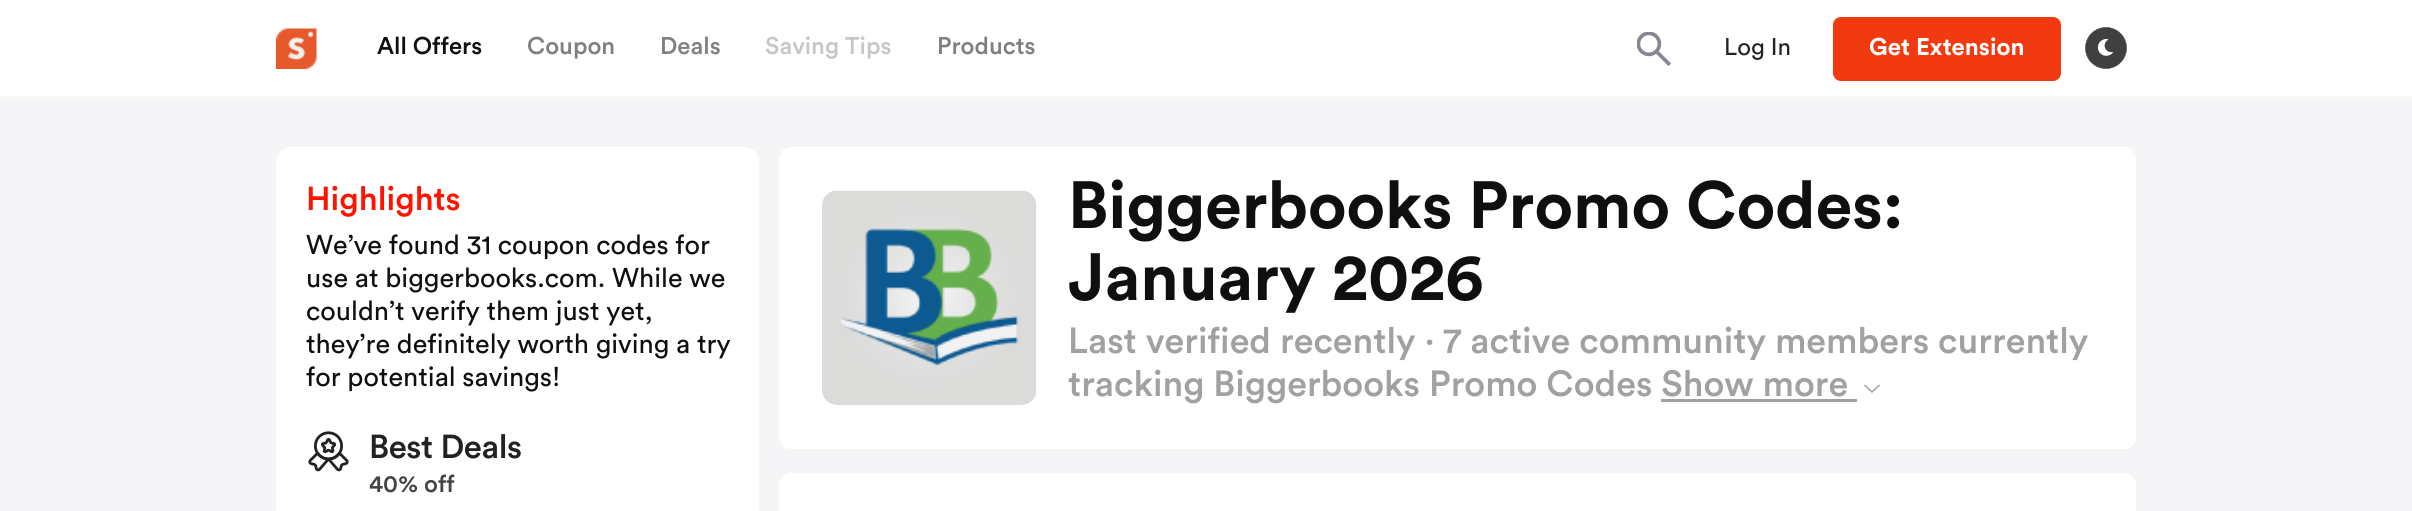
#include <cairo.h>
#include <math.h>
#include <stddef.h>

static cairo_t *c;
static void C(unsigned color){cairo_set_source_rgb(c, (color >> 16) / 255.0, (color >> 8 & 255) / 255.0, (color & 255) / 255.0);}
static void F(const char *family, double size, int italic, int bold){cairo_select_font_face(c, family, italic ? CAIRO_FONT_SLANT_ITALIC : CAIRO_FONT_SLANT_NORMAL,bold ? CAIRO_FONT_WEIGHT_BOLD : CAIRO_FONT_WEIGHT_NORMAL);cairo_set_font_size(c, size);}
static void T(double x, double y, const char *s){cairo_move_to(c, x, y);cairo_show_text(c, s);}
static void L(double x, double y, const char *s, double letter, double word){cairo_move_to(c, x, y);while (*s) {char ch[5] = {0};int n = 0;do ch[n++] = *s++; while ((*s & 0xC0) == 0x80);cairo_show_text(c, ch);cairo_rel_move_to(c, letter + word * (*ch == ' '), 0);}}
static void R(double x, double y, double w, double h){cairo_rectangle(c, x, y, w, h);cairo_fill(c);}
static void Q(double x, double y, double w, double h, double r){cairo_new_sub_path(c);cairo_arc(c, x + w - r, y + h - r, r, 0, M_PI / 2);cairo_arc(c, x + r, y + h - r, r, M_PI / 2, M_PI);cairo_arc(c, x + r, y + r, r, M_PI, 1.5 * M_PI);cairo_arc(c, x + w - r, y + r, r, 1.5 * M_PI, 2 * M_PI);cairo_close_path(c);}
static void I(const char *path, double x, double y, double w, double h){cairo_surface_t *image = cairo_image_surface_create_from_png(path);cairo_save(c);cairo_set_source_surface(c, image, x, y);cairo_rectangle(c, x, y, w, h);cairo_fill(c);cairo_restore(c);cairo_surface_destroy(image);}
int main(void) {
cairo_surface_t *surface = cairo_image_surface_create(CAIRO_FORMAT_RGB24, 2412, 511);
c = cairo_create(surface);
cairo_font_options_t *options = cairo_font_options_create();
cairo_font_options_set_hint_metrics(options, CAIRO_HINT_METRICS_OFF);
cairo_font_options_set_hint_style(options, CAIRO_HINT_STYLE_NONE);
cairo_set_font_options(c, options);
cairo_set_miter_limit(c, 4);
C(0xf5f5f7);
cairo_paint(c);
C(0xffffff);
R(0,0,2412,96);
C(0xf8f8f8);
R(0,96,2412,2);
I("1.png",276,28,41,41);
F("Circular Medium",24,0,0);
C(0x0f0f0f);
T(377,54,"All Offers");
C(0x808080);
T(527,54,"Coupon");
T(660,54,"Deals");
C(0xc6c6c6);
T(765,54,"Saving Tips");
C(0x808080);
T(937,54,"Products");
I("2.png",1637,32,34,34);
F("Circular",24,0,0);
C(0x222222);
T(1724,55,"Log In");
C(0xf23a10);
Q(1833,17,228,64,8);
cairo_fill(c);
F("Circular",24,0,1);
C(0xffffff);
T(1869,55,"Get Extension");
I("3.png",2085,27,42,42);
Q(276,147,483,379,15);
cairo_fill(c);
F("Circular Medium",33,0,0);
C(0xff1300);
T(306,210,"Highlights");
F("Circular",27,0,0);
C(0x0f0f0f);
T(306,254,"We’ve found 31 coupon codes for");
T(306,287,"use at biggerbooks.com. While we");
T(306,320,"couldn’t verify them just yet,");
T(306,353,"they’re definitely worth giving a try");
T(306,386,"for potential savings!");
I("4.png",308,431,41,41);
F("Circular Medium",33,0,0);
C(0x222222);
L(369,458,"Best Deals",-.4,0);
F("Circular Medium",24,0,0);
C(0x464342);
T(369,492,"40% off");
C(0xffffff);
Q(779,147,1357,302,12);
cairo_fill(c);
I("5.png",822,190,215,215);
F("Circular",66,0,1);
C(0x0f0f0f);
T(1068,228,"Biggerbooks Promo Codes:");
T(1068,300,"January 2026");
F("Circular Medium",36,0,0);
C(0xa1a1a2);
T(1068,353,"Last verified recently · 7 active community members currently");
T(1068,396,"tracking Biggerbooks Promo Codes Show more");
cairo_new_path(c);
cairo_move_to(c,1879.5,385);
cairo_line_to(c,1872,392);
cairo_line_to(c,1864.5,385);
cairo_set_line_width(c,1.5);
cairo_stroke(c);
R(1661,399,196,3);
C(0xffffff);
Q(779,473,1357,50,12);
cairo_fill(c);
cairo_surface_write_to_png(surface, "o.png");
cairo_font_options_destroy(options);
cairo_destroy(c);
cairo_surface_destroy(surface);
return 0;
}
